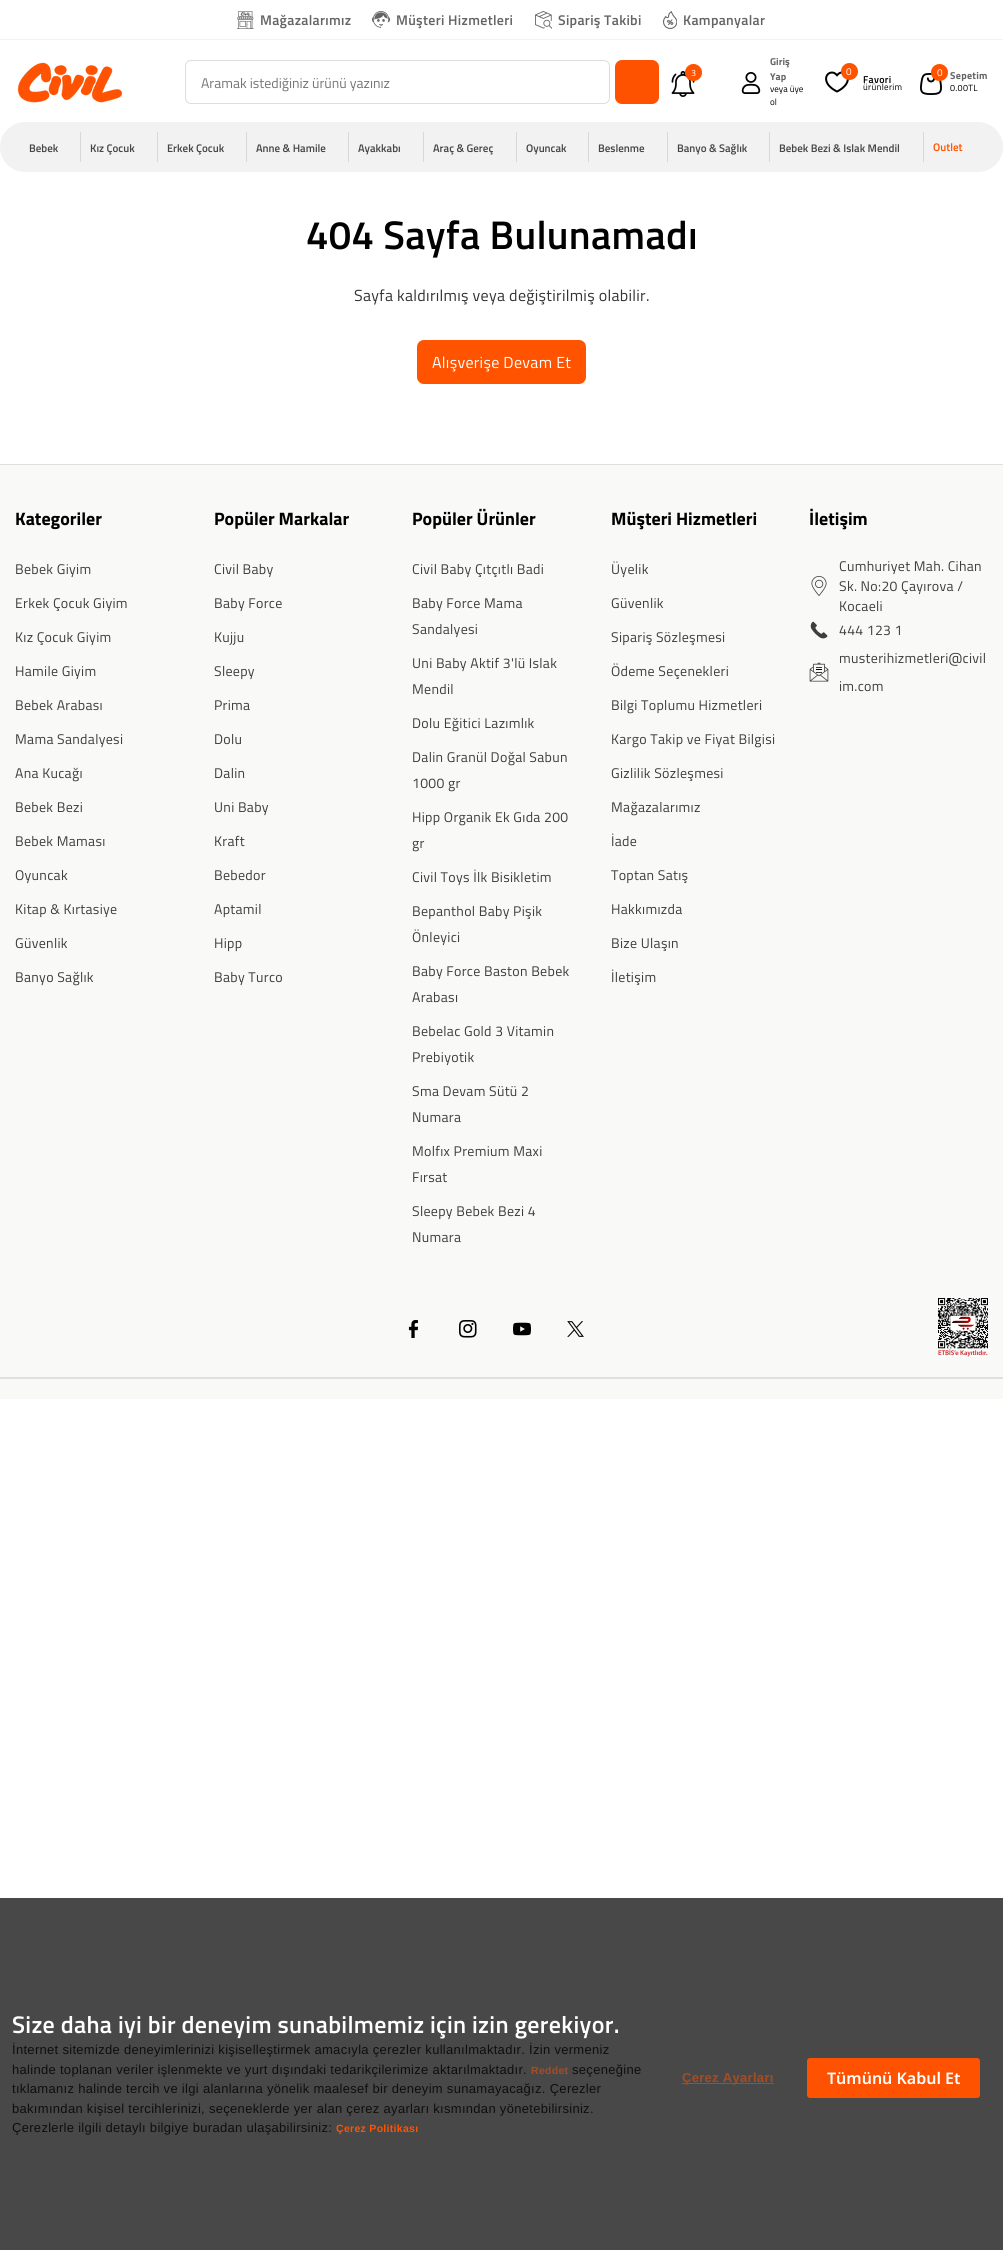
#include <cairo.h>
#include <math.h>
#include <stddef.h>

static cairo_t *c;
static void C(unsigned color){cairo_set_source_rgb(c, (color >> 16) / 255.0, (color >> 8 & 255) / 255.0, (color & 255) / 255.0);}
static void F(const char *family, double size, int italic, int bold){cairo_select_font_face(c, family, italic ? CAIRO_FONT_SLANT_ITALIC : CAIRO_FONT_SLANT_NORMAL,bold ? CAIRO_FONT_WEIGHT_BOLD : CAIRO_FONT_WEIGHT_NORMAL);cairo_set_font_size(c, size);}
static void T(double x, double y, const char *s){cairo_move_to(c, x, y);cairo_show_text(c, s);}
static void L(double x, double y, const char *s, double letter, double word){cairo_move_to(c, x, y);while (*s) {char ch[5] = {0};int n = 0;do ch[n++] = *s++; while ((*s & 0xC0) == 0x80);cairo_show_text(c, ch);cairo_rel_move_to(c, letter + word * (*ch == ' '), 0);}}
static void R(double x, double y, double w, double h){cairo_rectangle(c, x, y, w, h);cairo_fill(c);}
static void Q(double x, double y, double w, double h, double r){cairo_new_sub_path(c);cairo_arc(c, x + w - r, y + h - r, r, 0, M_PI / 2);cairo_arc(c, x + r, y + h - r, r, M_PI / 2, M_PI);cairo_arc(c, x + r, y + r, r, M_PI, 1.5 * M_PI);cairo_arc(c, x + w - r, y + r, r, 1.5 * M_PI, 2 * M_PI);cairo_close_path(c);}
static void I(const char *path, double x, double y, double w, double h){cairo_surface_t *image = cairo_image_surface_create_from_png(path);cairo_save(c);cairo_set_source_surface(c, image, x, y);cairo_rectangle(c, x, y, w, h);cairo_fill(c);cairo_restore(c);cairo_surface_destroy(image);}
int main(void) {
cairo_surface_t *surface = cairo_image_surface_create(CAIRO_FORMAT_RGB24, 1003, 2250);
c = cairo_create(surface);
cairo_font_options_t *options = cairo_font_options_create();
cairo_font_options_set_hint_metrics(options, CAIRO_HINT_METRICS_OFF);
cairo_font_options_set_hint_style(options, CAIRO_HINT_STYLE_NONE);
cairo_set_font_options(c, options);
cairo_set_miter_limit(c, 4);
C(0xffffff);
cairo_paint(c);
C(0xf2f2f2);
R(0,39,1003,1);
I("1.png",237,11,17,18);
F("Titillium Web SemiBold",14,0,0);
C(0x646464);
L(260,25,"Mağazalarımız",.3,0);
I("2.png",372,11,18,17);
L(396,25,"Müşteri Hizmetleri",.3,0);
I("3.png",535,11,17,18);
L(558,25,"Sipariş Takibi",.3,0);
I("4.png",663,11,14,18);
L(683,25,"Kampanyalar",.3,0);
I("5.png",17,62,106,41);
Q(185.5,60.5,424,43,5.5);
C(0xdddddd);
cairo_set_line_width(c,1);
cairo_stroke(c);
F("Titillium Web",14,0,0);
C(0x757575);
T(201,88,"Aramak istediğiniz ürünü yazınız");
C(0xff5200);
Q(615,60,44,44,7);
cairo_fill(c);
I("6.png",671,71,24,26);
C(0xff5300);
cairo_arc(c,693.5,72.5,8,0,2 * M_PI);
cairo_fill_preserve(c);
cairo_stroke(c);
F("Titillium Web",9,0,0);
C(0xffffff);
L(691,76,"3",.3,0);
I("7.png",741,72,20,22);
F("Titillium Web",10,0,1);
C(0x646464);
T(770,65,"Giriş");
T(770,80,"Yap");
F("Titillium Web",9,0,0);
C(0x000000);
T(770,92,"veya üye");
T(770,105,"ol");
I("8.png",825,71,24,22);
C(0xff5300);
cairo_arc(c,849.5,71.5,8.5,0,2 * M_PI);
cairo_fill(c);
F("Titillium Web",10,0,0);
C(0xffffff);
L(846,75,"0",.3,0);
F("Titillium Web SemiBold",10,0,0);
C(0x000000);
L(863,83,"Favori",.3,0);
F("Titillium Web",9,0,0);
L(863,90,"ürünlerim",.3,0);
I("9.png",920,73,22,22);
C(0xff5300);
cairo_arc(c,939.5,72.5,8.5,0,2 * M_PI);
cairo_fill(c);
F("Titillium Web",10,0,0);
C(0xffffff);
L(937,76,"0",.3,0);
F("Titillium Web",10,0,1);
C(0x646464);
L(950,79,"Sepetim",.3,0);
F("Titillium Web",9,0,0);
C(0x000000);
L(950,91,"0.00TL",.3,0);
C(0xf2f2f2);
Q(.5,122.5,1002,49,24.5);
cairo_fill_preserve(c);
cairo_stroke(c);
F("Titillium Web SemiBold",11,0,0);
C(0x454545);
T(29,152,"Bebek");
C(0xd8d8d8);
R(80,132,1,30);
C(0x454545);
T(90,152,"Kız Çocuk");
C(0xd8d8d8);
R(157,132,1,30);
C(0x454545);
T(167,152,"Erkek Çocuk");
C(0xd8d8d8);
R(246,132,1,30);
C(0x454545);
T(256,152,"Anne & Hamile");
C(0xd8d8d8);
R(348,132,1,30);
C(0x454545);
T(358,152,"Ayakkabı");
C(0xd8d8d8);
R(423,132,1,30);
C(0x454545);
T(433,152,"Araç & Gereç");
C(0xd8d8d8);
R(516,132,1,30);
C(0x454545);
T(526,152,"Oyuncak");
C(0xd8d8d8);
R(588,132,1,30);
C(0x454545);
T(598,152,"Beslenme");
C(0xd8d8d8);
R(667,132,1,30);
C(0x454545);
T(677,152,"Banyo & Sağlık");
C(0xd8d8d8);
R(769,132,1,30);
C(0x454545);
T(779,152,"Bebek Bezi & Islak Mendil");
C(0xd8d8d8);
R(923,132,1,30);
C(0xff5300);
T(933,151,"Outlet");
F("Titillium Web SemiBold",40,0,0);
C(0x000000);
L(306,249,"404 Sayfa Bulunamadı",.3,0);
F("Titillium Web",16,0,0);
C(0x333333);
L(354,301,"Sayfa kaldırılmış veya değiştirilmiş olabilir.",.3,0);
C(0xff5300);
Q(417,340,169,44,7);
cairo_fill(c);
C(0xffffff);
L(432,368,"Alışverişe Devam Et",.3,0);
C(0xf9f9f7);
R(0,465,1003,934);
C(0xe0e0de);
R(0,464,1003,1);
F("Titillium Web",18,0,1);
C(0x000000);
T(15,525,"Kategoriler");
F("Titillium Web",14,0,0);
C(0x3e3e3e);
L(15,574,"Bebek Giyim",.3,0);
L(15,608,"Erkek Çocuk Giyim",.3,0);
L(15,642,"Kız Çocuk Giyim",.3,0);
L(15,676,"Hamile Giyim",.3,0);
L(15,710,"Bebek Arabası",.3,0);
L(15,744,"Mama Sandalyesi",.3,0);
L(15,778,"Ana Kucağı",.3,0);
L(15,812,"Bebek Bezi",.3,0);
L(15,846,"Bebek Maması",.3,0);
L(15,880,"Oyuncak",.3,0);
L(15,914,"Kitap & Kırtasiye",.3,0);
L(15,948,"Güvenlik",.3,0);
L(15,982,"Banyo Sağlık",.3,0);
F("Titillium Web",18,0,1);
C(0x000000);
T(214,525,"Popüler Markalar");
F("Titillium Web",14,0,0);
C(0x3e3e3e);
L(214,574,"Civil Baby",.3,0);
L(214,608,"Baby Force",.3,0);
L(214,642,"Kujju",.3,0);
L(214,676,"Sleepy",.3,0);
L(214,710,"Prima",.3,0);
L(214,744,"Dolu",.3,0);
L(214,778,"Dalin",.3,0);
L(214,812,"Uni Baby",.3,0);
L(214,846,"Kraft",.3,0);
L(214,880,"Bebedor",.3,0);
L(214,914,"Aptamil",.3,0);
L(214,948,"Hipp",.3,0);
L(214,982,"Baby Turco",.3,0);
F("Titillium Web",18,0,1);
C(0x000000);
T(412,525,"Popüler Ürünler");
F("Titillium Web",14,0,0);
C(0x3e3e3e);
L(412,574,"Civil Baby Çıtçıtlı Badi",.3,0);
L(412,608,"Baby Force Mama",.3,0);
L(412,634,"Sandalyesi",.3,0);
L(412,668,"Uni Baby Aktif 3'lü Islak",.3,0);
L(412,694,"Mendil",.3,0);
L(412,728,"Dolu Eğitici Lazımlık",.3,0);
L(412,762,"Dalin Granül Doğal Sabun",.3,0);
L(412,788,"1000 gr",.3,0);
L(412,822,"Hipp Organik Ek Gıda 200",.3,0);
L(412,848,"gr",.3,0);
L(412,882,"Civil Toys İlk Bisikletim",.3,0);
L(412,916,"Bepanthol Baby Pişik",.3,0);
L(412,942,"Önleyici",.3,0);
L(412,976,"Baby Force Baston Bebek",.3,0);
L(412,1002,"Arabası",.3,0);
L(412,1036,"Bebelac Gold 3 Vitamin",.3,0);
L(412,1062,"Prebiyotik",.3,0);
L(412,1096,"Sma Devam Sütü 2",.3,0);
L(412,1122,"Numara",.3,0);
L(412,1156,"Molfıx Premium Maxi",.3,0);
L(412,1182,"Fırsat",.3,0);
L(412,1216,"Sleepy Bebek Bezi 4",.3,0);
L(412,1242,"Numara",.3,0);
F("Titillium Web",18,0,1);
C(0x000000);
T(611,525,"Müşteri Hizmetleri");
F("Titillium Web",14,0,0);
C(0x3e3e3e);
L(611,574,"Üyelik",.3,0);
L(611,608,"Güvenlik",.3,0);
L(611,642,"Sipariş Sözleşmesi",.3,0);
L(611,676,"Ödeme Seçenekleri",.3,0);
L(611,710,"Bilgi Toplumu Hizmetleri",.3,0);
L(611,744,"Kargo Takip ve Fiyat Bilgisi",.3,0);
L(611,778,"Gizlilik Sözleşmesi",.3,0);
L(611,812,"Mağazalarımız",.3,0);
L(611,846,"İade",.3,0);
L(611,880,"Toptan Satış",.3,0);
L(611,914,"Hakkımızda",.3,0);
L(611,948,"Bize Ulaşın",.3,0);
L(611,982,"İletişim",.3,0);
F("Titillium Web",18,0,1);
C(0x000000);
T(809,525,"İletişim");
I("10.png",811,576,16,20);
F("Titillium Web",14,0,0);
C(0x3e3e3e);
L(839,571,"Cumhuriyet Mah. Cihan",.3,0);
L(839,591,"Sk. No:20 Çayırova /",.3,0);
L(839,611,"Kocaeli",.3,0);
I("11.png",810,621,18,18);
L(839,635,"444 123 1",.3,0);
I("12.png",809,662,20,20);
L(839,663,"musterihizmetleri@civil",.3,0);
L(839,691,"im.com",.3,0);
C(0xe0e0de);
R(0,1377,1003,2);
I("13.png",408,1320,11,18);
I("14.png",459,1320,18,18);
I("15.png",513,1322,18,14);
I("16.png",567,1321,17,16);
I("17.png",938,1298,50,59);
C(0x484848);
R(0,1898,1003,352);
F("Titillium Web SemiBold",24,0,0);
C(0xffffff);
L(12,2033,"Size daha iyi bir deneyim sunabilmemiz için izin gerekiyor.",.3,0);
F("Liberation Sans",13,0,0);
C(0x0e0e0e);
L(12,2054,"İnternet sitemizde deneyimlerinizi kişiselleştirmek amacıyla çerezler kullanılmaktadır. İzin vermeniz",.3,0);
L(12,2074,"halinde toplanan veriler işlenmekte ve yurt dışındaki tedarikçilerimize aktarılmaktadır.",.3,0);
F("Liberation Sans",10.5,0,1);
C(0xa44d24);
L(531,2074,"Reddet",.3,0);
F("Liberation Sans",13,0,0);
C(0x0e0e0e);
L(572,2074,"seçeneğine",.3,0);
L(12,2093,"tıklamanız halinde tercih ve ilgi alanlarına yönelik maalesef bir deneyim sunamayacağız. Çerezler",.3,0);
L(12,2113,"bakımından kişisel tercihlerinizi, seçeneklerde yer alan çerez ayarları kısmından yönetebilirsiniz.",.3,0);
L(12,2132,"Çerezlerle ilgili detaylı bilgiye buradan ulaşabilirsiniz:",.3,0);
F("Liberation Sans",10.5,0,1);
C(0xff5300);
L(336,2132,"Çerez Politikası",.3,0);
C(0xa44d24);
R(682,2083,92,1);
F("Liberation Sans",13,0,1);
L(682,2082,"Çerez Ayarları",.3,0);
C(0xff5200);
Q(807,2058,173,40,3);
cairo_fill(c);
F("Noto Sans SemiBold",16,0,0);
C(0xffffff);
T(827,2084,"Tümünü Kabul Et");
cairo_surface_write_to_png(surface, "o.png");
cairo_font_options_destroy(options);
cairo_destroy(c);
cairo_surface_destroy(surface);
return 0;
}
